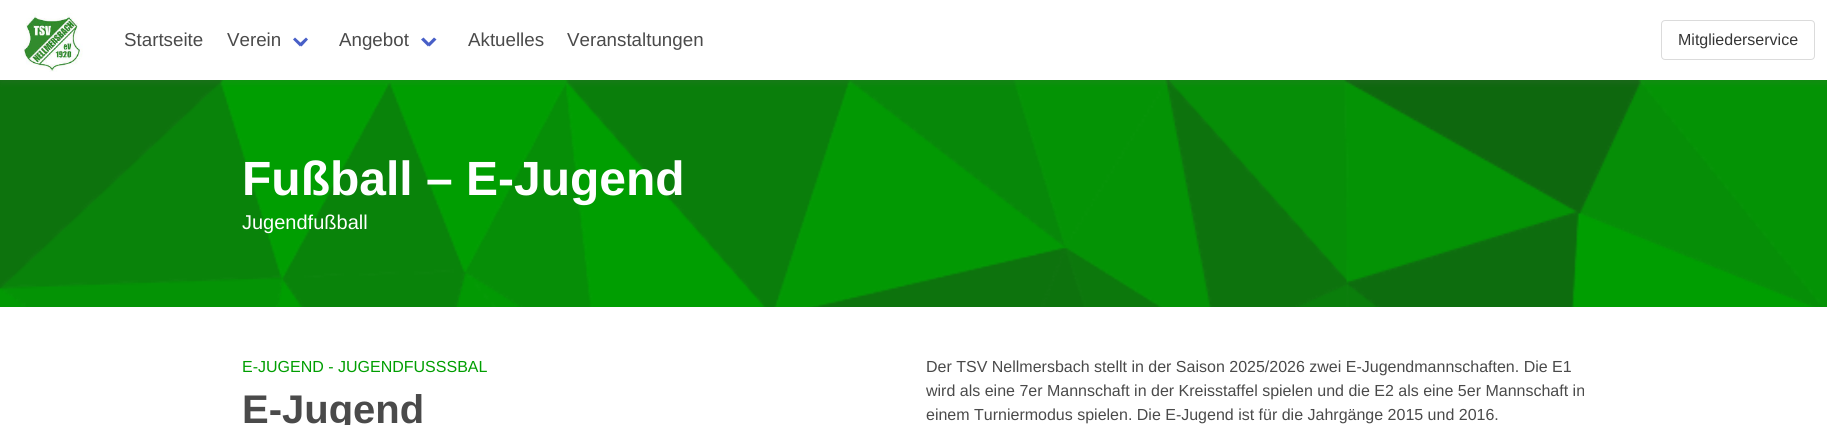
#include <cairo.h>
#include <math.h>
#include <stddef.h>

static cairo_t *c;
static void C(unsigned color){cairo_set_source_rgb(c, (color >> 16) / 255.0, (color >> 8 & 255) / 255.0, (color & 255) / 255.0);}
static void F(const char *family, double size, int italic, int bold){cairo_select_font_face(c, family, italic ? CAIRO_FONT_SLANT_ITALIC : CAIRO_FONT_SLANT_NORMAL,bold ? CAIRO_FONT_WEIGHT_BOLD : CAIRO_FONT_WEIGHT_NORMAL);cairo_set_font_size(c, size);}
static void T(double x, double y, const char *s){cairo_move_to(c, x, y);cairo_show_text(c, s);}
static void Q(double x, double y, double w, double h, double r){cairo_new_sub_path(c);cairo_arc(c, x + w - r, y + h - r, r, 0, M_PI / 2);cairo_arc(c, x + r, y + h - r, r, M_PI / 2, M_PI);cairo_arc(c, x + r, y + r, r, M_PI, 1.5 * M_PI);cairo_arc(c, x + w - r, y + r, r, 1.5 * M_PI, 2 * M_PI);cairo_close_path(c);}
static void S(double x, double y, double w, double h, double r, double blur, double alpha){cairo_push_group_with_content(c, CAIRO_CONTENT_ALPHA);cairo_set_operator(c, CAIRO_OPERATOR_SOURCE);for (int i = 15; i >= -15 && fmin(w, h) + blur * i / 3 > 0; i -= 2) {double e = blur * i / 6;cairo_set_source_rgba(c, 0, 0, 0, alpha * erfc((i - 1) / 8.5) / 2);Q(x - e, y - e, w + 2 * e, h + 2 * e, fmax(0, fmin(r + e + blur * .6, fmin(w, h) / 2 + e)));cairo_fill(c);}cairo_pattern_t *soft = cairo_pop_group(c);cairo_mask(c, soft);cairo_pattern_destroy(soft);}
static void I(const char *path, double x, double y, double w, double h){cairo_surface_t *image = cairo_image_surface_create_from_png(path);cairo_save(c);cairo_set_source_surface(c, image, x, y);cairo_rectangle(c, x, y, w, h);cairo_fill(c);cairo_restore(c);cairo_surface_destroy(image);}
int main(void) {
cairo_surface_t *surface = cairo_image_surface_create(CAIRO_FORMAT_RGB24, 1827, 425);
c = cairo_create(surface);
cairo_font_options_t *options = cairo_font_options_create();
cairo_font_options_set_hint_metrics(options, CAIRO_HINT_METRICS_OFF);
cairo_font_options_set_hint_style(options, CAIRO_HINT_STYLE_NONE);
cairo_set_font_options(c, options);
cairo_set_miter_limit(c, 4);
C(0xffffff);
cairo_paint(c);
I("2.png",0,80,1827,227);
cairo_save(c);
cairo_rectangle(c,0,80,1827,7);
cairo_clip(c);
C(0x636363);
S(0,2,1827,80,0,4,.2);
cairo_restore(c);
I("1.png",21,13,62,59);
F("Liberation Sans",18.75,0,0);
C(0x4a4a4a);
T(124,46,"Startseite");
T(227,46,"Verein");
C(0x485fc7);
cairo_new_path(c);
cairo_move_to(c,299,44);
cairo_line_to(c,306,37.5);
cairo_line_to(c,308,39.5);
cairo_line_to(c,301.5,46.5);
cairo_close_path(c);
cairo_fill(c);
cairo_new_path(c);
cairo_move_to(c,293,39.5);
cairo_line_to(c,295,37.5);
cairo_line_to(c,302,44);
cairo_line_to(c,300,46.5);
cairo_close_path(c);
cairo_fill(c);
C(0x4a4a4a);
T(339,46,"Angebot");
C(0x485fc7);
cairo_new_path(c);
cairo_move_to(c,427.5,44);
cairo_line_to(c,434,37.5);
cairo_line_to(c,436.5,39.5);
cairo_line_to(c,429.5,46.5);
cairo_close_path(c);
cairo_fill(c);
cairo_new_path(c);
cairo_move_to(c,421,39.5);
cairo_line_to(c,423.5,37.5);
cairo_line_to(c,430,44);
cairo_line_to(c,428,46.5);
cairo_close_path(c);
cairo_fill(c);
C(0x4a4a4a);
T(468,46,"Aktuelles");
T(567,46,"Veranstaltungen");
Q(1661.5,20.5,153,39,3.5);
C(0xdbdbdb);
cairo_set_line_width(c,1);
cairo_stroke(c);
F("Liberation Sans",16,0,0);
C(0x363636);
T(1678,45,"Mitgliederservice");
F("Liberation Sans",48,0,1);
C(0xffffff);
T(242,195,"Fußball – E-Jugend");
F("Liberation Sans",20,0,0);
T(242,229,"Jugendfußball");
F("Liberation Sans",16,0,0);
C(0x009e01);
T(242,372,"E-JUGEND - JUGENDFUSSSBAL");
F("Liberation Sans",40,0,1);
C(0x4a4a4a);
T(242,423,"E-Jugend");
F("Liberation Sans",16,0,0);
T(926,372,"Der TSV Nellmersbach stellt in der Saison 2025/2026 zwei E-Jugendmannschaften. Die E1");
T(926,396,"wird als eine 7er Mannschaft in der Kreisstaffel spielen und die E2 als eine 5er Mannschaft in");
T(926,420,"einem Turniermodus spielen. Die E-Jugend ist für die Jahrgänge 2015 und 2016.");
cairo_surface_write_to_png(surface, "o.png");
cairo_font_options_destroy(options);
cairo_destroy(c);
cairo_surface_destroy(surface);
return 0;
}
